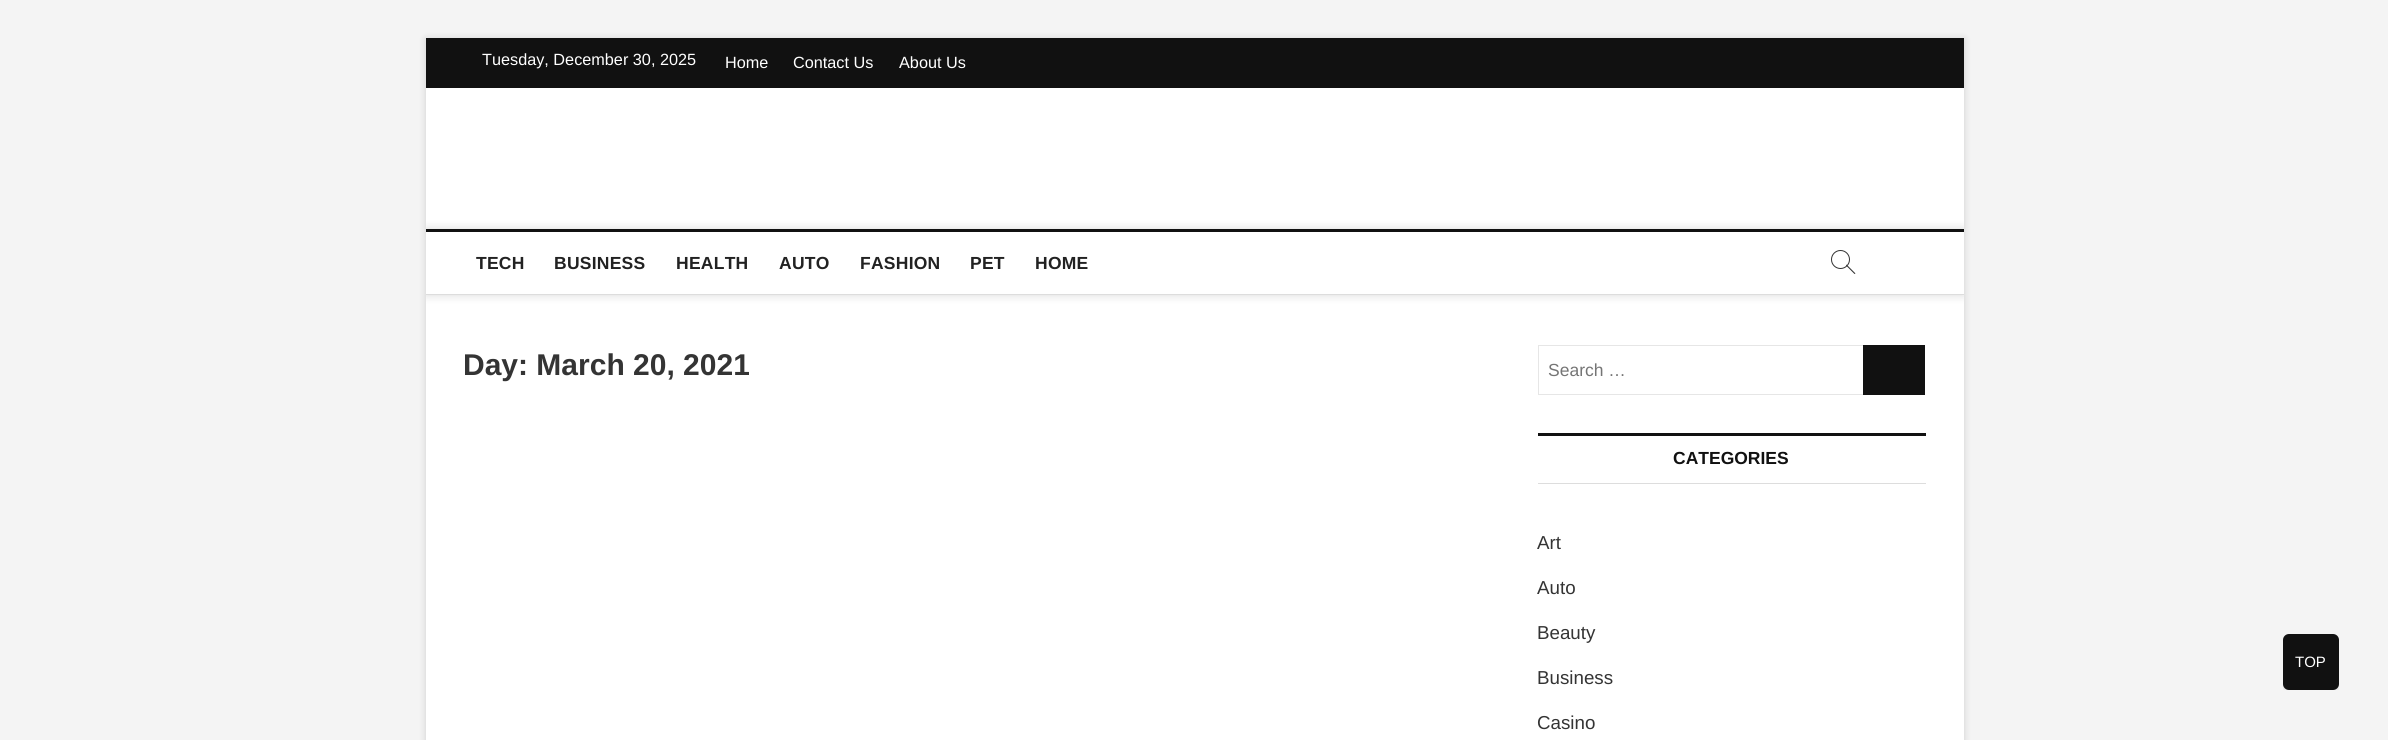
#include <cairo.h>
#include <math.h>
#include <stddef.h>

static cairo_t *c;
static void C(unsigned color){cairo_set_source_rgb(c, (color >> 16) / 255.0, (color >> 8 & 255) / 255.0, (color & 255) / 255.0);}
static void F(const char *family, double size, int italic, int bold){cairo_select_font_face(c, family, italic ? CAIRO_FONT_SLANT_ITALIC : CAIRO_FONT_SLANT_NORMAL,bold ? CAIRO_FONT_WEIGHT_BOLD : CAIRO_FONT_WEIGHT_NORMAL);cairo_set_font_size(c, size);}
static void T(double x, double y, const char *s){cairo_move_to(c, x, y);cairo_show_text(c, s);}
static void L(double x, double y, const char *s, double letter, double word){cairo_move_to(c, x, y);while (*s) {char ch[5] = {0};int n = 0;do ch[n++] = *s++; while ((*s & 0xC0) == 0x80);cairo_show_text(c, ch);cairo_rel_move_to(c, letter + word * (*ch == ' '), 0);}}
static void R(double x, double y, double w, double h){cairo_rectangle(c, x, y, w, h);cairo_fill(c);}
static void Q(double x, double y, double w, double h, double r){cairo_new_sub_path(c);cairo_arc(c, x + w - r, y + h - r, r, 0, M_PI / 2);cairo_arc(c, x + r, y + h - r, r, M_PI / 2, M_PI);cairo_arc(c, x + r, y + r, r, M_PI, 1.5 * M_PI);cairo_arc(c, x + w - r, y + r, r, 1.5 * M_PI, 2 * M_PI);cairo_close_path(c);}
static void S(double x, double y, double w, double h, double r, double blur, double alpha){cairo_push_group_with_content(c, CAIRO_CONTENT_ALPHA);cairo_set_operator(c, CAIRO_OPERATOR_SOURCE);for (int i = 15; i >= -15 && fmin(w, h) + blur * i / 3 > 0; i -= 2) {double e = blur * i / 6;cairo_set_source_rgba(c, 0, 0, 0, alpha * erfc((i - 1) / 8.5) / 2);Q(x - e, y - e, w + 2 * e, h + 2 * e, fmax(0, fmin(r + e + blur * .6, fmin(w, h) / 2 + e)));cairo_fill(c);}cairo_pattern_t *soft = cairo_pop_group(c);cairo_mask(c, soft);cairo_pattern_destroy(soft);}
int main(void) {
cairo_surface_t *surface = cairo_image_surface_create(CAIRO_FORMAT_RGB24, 2388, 740);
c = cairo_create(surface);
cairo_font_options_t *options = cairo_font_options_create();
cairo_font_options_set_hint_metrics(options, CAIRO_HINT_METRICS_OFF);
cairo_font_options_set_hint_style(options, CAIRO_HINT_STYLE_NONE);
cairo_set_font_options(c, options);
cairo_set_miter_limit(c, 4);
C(0xf4f4f4);
cairo_paint(c);
C(0x000000);
S(426,39,1538,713,0,4,.15);
C(0xffffff);
R(426,88,1538,652);
C(0x111111);
R(426,38,1538,50);
F("Liberation Sans",16.25,0,0);
C(0xffffff);
T(482,65,"Tuesday, December 30, 2025");
T(725,68,"Home");
T(793,68,"Contact Us");
T(899,68,"About Us");
cairo_save(c);
cairo_rectangle(c,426,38,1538,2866);
cairo_clip(c);
cairo_set_fill_rule(c,CAIRO_FILL_RULE_EVEN_ODD);
cairo_new_path(c);
cairo_move_to(c,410,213);
cairo_line_to(c,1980,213);
cairo_line_to(c,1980,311);
cairo_line_to(c,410,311);
cairo_close_path(c);
cairo_move_to(c,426,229);
cairo_line_to(c,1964,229);
cairo_line_to(c,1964,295);
cairo_line_to(c,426,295);
cairo_close_path(c);
cairo_clip(c);
C(0x000000);
S(426,229,1538,66,0,5,.15);
cairo_restore(c);
C(0x111111);
R(426,229,1538,3);
C(0xdddddd);
R(426,294,1538,1);
F("Liberation Sans",17.5,0,1);
C(0x222222);
L(476,269,"TECH",.25,0);
L(554,269,"BUSINESS",.25,0);
L(676,269,"HEALTH",.25,0);
L(779,269,"AUTO",.25,0);
L(860,269,"FASHION",.25,0);
L(970,269,"PET",.25,0);
L(1035,269,"HOME",.25,0);
cairo_new_path(c);
cairo_arc(c,1840.5,259.5,9,0,2 * M_PI);
C(0x333333);
cairo_set_line_width(c,1);
cairo_stroke(c);
cairo_new_path(c);
cairo_move_to(c,1846,265.5);
cairo_line_to(c,1846.5,264.5);
cairo_line_to(c,1855.5,273.5);
cairo_line_to(c,1854.5,274);
cairo_close_path(c);
cairo_fill(c);
F("Liberation Sans",30,0,1);
C(0x343434);
T(463,375,"Day: March 20, 2021");
cairo_rectangle(c,1538.5,345.5,325,49);
C(0xe6e6e6);
cairo_stroke(c);
F("Liberation Sans",17.5,0,0);
C(0x757575);
T(1548,376,"Search …");
C(0x111111);
R(1863,345,62,50);
R(1538,433,388,3);
C(0xdddddd);
R(1538,483,388,1);
F("Liberation Sans",17.5,0,1);
C(0x111111);
T(1673,464,"CATEGORIES");
F("Liberation Sans",18.75,0,0);
C(0x343434);
T(1537,549,"Art");
T(1537,594,"Auto");
T(1537,639,"Beauty");
T(1537,684,"Business");
T(1537,729,"Casino");
cairo_save(c);
cairo_rectangle(c,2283,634,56,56);
cairo_clip(c);
C(0x000000);
S(2283,636,56,57,6,2,.08);
cairo_restore(c);
C(0x111111);
Q(2283,634,56,56,6);
cairo_fill(c);
F("Liberation Sans",15,0,0);
C(0xffffff);
T(2295,667,"TOP");
cairo_surface_write_to_png(surface, "o.png");
cairo_font_options_destroy(options);
cairo_destroy(c);
cairo_surface_destroy(surface);
return 0;
}
